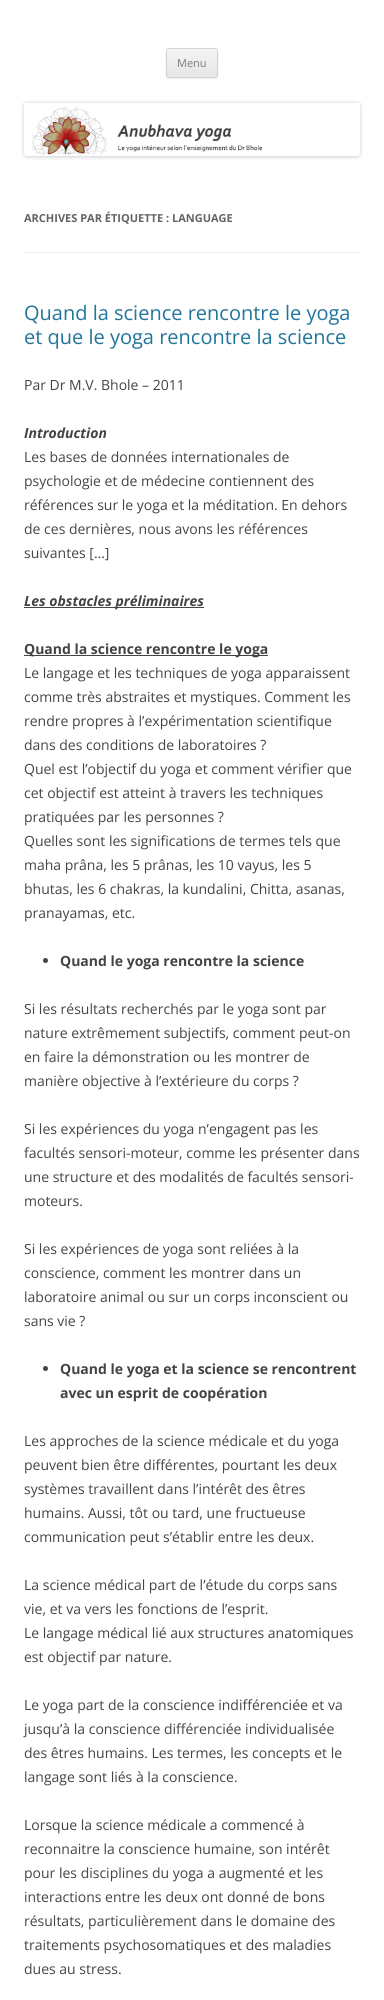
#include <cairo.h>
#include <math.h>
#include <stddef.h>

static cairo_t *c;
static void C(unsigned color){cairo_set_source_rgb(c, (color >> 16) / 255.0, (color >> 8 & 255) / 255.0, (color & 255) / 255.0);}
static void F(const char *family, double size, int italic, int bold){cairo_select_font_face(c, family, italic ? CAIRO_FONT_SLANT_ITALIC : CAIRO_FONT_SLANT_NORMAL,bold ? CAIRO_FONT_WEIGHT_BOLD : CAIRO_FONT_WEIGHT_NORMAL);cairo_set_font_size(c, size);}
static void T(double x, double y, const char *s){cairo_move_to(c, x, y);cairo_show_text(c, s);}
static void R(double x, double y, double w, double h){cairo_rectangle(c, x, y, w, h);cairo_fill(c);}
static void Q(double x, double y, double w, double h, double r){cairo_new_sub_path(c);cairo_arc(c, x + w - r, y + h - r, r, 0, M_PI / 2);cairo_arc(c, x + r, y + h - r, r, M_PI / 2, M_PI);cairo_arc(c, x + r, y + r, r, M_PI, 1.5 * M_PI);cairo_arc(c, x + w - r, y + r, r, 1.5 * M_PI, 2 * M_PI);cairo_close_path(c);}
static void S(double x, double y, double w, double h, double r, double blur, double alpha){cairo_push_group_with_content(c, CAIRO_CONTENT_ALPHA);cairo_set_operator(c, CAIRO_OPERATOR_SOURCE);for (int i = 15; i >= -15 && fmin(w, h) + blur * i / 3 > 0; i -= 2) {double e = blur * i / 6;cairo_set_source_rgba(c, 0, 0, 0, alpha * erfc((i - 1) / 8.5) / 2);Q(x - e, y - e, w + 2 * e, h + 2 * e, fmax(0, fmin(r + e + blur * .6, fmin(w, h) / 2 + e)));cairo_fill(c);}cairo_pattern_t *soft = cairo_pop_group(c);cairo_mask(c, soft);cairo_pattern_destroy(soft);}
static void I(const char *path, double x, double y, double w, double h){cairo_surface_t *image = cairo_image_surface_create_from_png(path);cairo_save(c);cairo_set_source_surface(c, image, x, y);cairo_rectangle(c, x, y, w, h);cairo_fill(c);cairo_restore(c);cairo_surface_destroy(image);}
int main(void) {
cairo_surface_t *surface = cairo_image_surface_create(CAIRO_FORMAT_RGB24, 384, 2000);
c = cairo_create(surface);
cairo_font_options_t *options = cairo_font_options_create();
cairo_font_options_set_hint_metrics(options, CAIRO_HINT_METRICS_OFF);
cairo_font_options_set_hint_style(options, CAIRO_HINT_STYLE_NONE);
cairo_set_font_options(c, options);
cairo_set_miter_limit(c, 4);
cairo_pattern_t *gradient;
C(0xffffff);
cairo_paint(c);
C(0x404040);
S(166,49,52,30,3,1,.1);
cairo_save(c);
Q(166,48,52,30,3);
cairo_clip(c);
gradient = cairo_pattern_create_linear(192,49,192,77);
cairo_pattern_add_color_stop_rgba(gradient,0,0.957,0.957,0.957,1);
cairo_pattern_add_color_stop_rgba(gradient,1,0.902,0.902,0.902,1);
cairo_set_source(c,gradient);
cairo_pattern_destroy(gradient);
R(166,49,52,28);
cairo_restore(c);
Q(166.5,48.5,51,29,2.5);
C(0xd2d2d2);
cairo_set_line_width(c,1);
cairo_stroke(c);
F("Open Sans",11,0,0);
C(0x7c7c7c);
T(177,67,"Menu");
C(0x000000);
S(24,103,336,54,3,2,.2);
I("1.png",24,103,336,53);
C(0xededed);
R(24,252,336,1);
F("Open Sans",11,0,1);
C(0x636363);
T(24,222,"ARCHIVES PAR ÉTIQUETTE : LANGUAGE");
F("Open Sans",20,0,0);
C(0x21759b);
T(24,320,"Quand la science rencontre le yoga");
T(24,344,"et que le yoga rencontre la science");
F("Open Sans",14,0,0);
C(0x444444);
T(24,390,"Par Dr M.V. Bhole – 2011");
F("Open Sans",14,1,1);
T(24,438,"Introduction");
F("Open Sans",14,0,0);
T(24,462,"Les bases de données internationales de");
T(24,486,"psychologie et de médecine contiennent des");
T(24,510,"références sur le yoga et la méditation. En dehors");
T(24,534,"de ces dernières, nous avons les références");
T(24,558,"suivantes […]");
R(24,607,180,1);
F("Open Sans",14,1,1);
T(24,606,"Les obstacles préliminaires");
R(24,655,244,1);
F("Open Sans",14,0,1);
T(24,654,"Quand la science rencontre le yoga");
F("Open Sans",14,0,0);
T(24,678,"Le langage et les techniques de yoga apparaissent");
T(24,702,"comme très abstraites et mystiques. Comment les");
T(24,726,"rendre propres à l’expérimentation scientifique");
T(24,750,"dans des conditions de laboratoires ?");
T(24,774,"Quel est l’objectif du yoga et comment vérifier que");
T(24,798,"cet objectif est atteint à travers les techniques");
T(24,822,"pratiquées par les personnes ?");
T(24,846,"Quelles sont les significations de termes tels que");
T(24,870,"maha prâna, les 5 prânas, les 10 vayus, les 5");
T(24,894,"bhutas, les 6 chakras, la kundalini, Chitta, asanas,");
T(24,918,"pranayamas, etc.");
cairo_new_path(c);
cairo_arc(c,45.5,960.5,2.5,0,2 * M_PI);
cairo_fill(c);
F("Open Sans",14,0,1);
T(60,966,"Quand le yoga rencontre la science");
F("Open Sans",14,0,0);
T(24,1014,"Si les résultats recherchés par le yoga sont par");
T(24,1038,"nature extrêmement subjectifs, comment peut-on");
T(24,1062,"en faire la démonstration ou les montrer de");
T(24,1086,"manière objective à l’extérieure du corps ?");
T(24,1134,"Si les expériences du yoga n’engagent pas les");
T(24,1158,"facultés sensori-moteur, comme les présenter dans");
T(24,1182,"une structure et des modalités de facultés sensori-");
T(24,1206,"moteurs.");
T(24,1254,"Si les expériences de yoga sont reliées à la");
T(24,1278,"conscience, comment les montrer dans un");
T(24,1302,"laboratoire animal ou sur un corps inconscient ou");
T(24,1326,"sans vie ?");
cairo_new_path(c);
cairo_arc(c,45.5,1368.5,2.5,0,2 * M_PI);
cairo_fill(c);
F("Open Sans",14,0,1);
T(60,1374,"Quand le yoga et la science se rencontrent");
T(60,1398,"avec un esprit de coopération");
F("Open Sans",14,0,0);
T(24,1446,"Les approches de la science médicale et du yoga");
T(24,1470,"peuvent bien être différentes, pourtant les deux");
T(24,1494,"systèmes travaillent dans l’intérêt des êtres");
T(24,1518,"humains. Aussi, tôt ou tard, une fructueuse");
T(24,1542,"communication peut s’établir entre les deux.");
T(24,1590,"La science médical part de l’étude du corps sans");
T(24,1614,"vie, et va vers les fonctions de l’esprit.");
T(24,1638,"Le langage médical lié aux structures anatomiques");
T(24,1662,"est objectif par nature.");
T(24,1710,"Le yoga part de la conscience indifférenciée et va");
T(24,1734,"jusqu’à la conscience différenciée individualisée");
T(24,1758,"des êtres humains. Les termes, les concepts et le");
T(24,1782,"langage sont liés à la conscience.");
T(24,1830,"Lorsque la science médicale a commencé à");
T(24,1854,"reconnaitre la conscience humaine, son intérêt");
T(24,1878,"pour les disciplines du yoga a augmenté et les");
T(24,1902,"interactions entre les deux ont donné de bons");
T(24,1926,"résultats, particulièrement dans le domaine des");
T(24,1950,"traitements psychosomatiques et des maladies");
T(24,1974,"dues au stress.");
cairo_surface_write_to_png(surface, "o.png");
cairo_font_options_destroy(options);
cairo_destroy(c);
cairo_surface_destroy(surface);
return 0;
}
